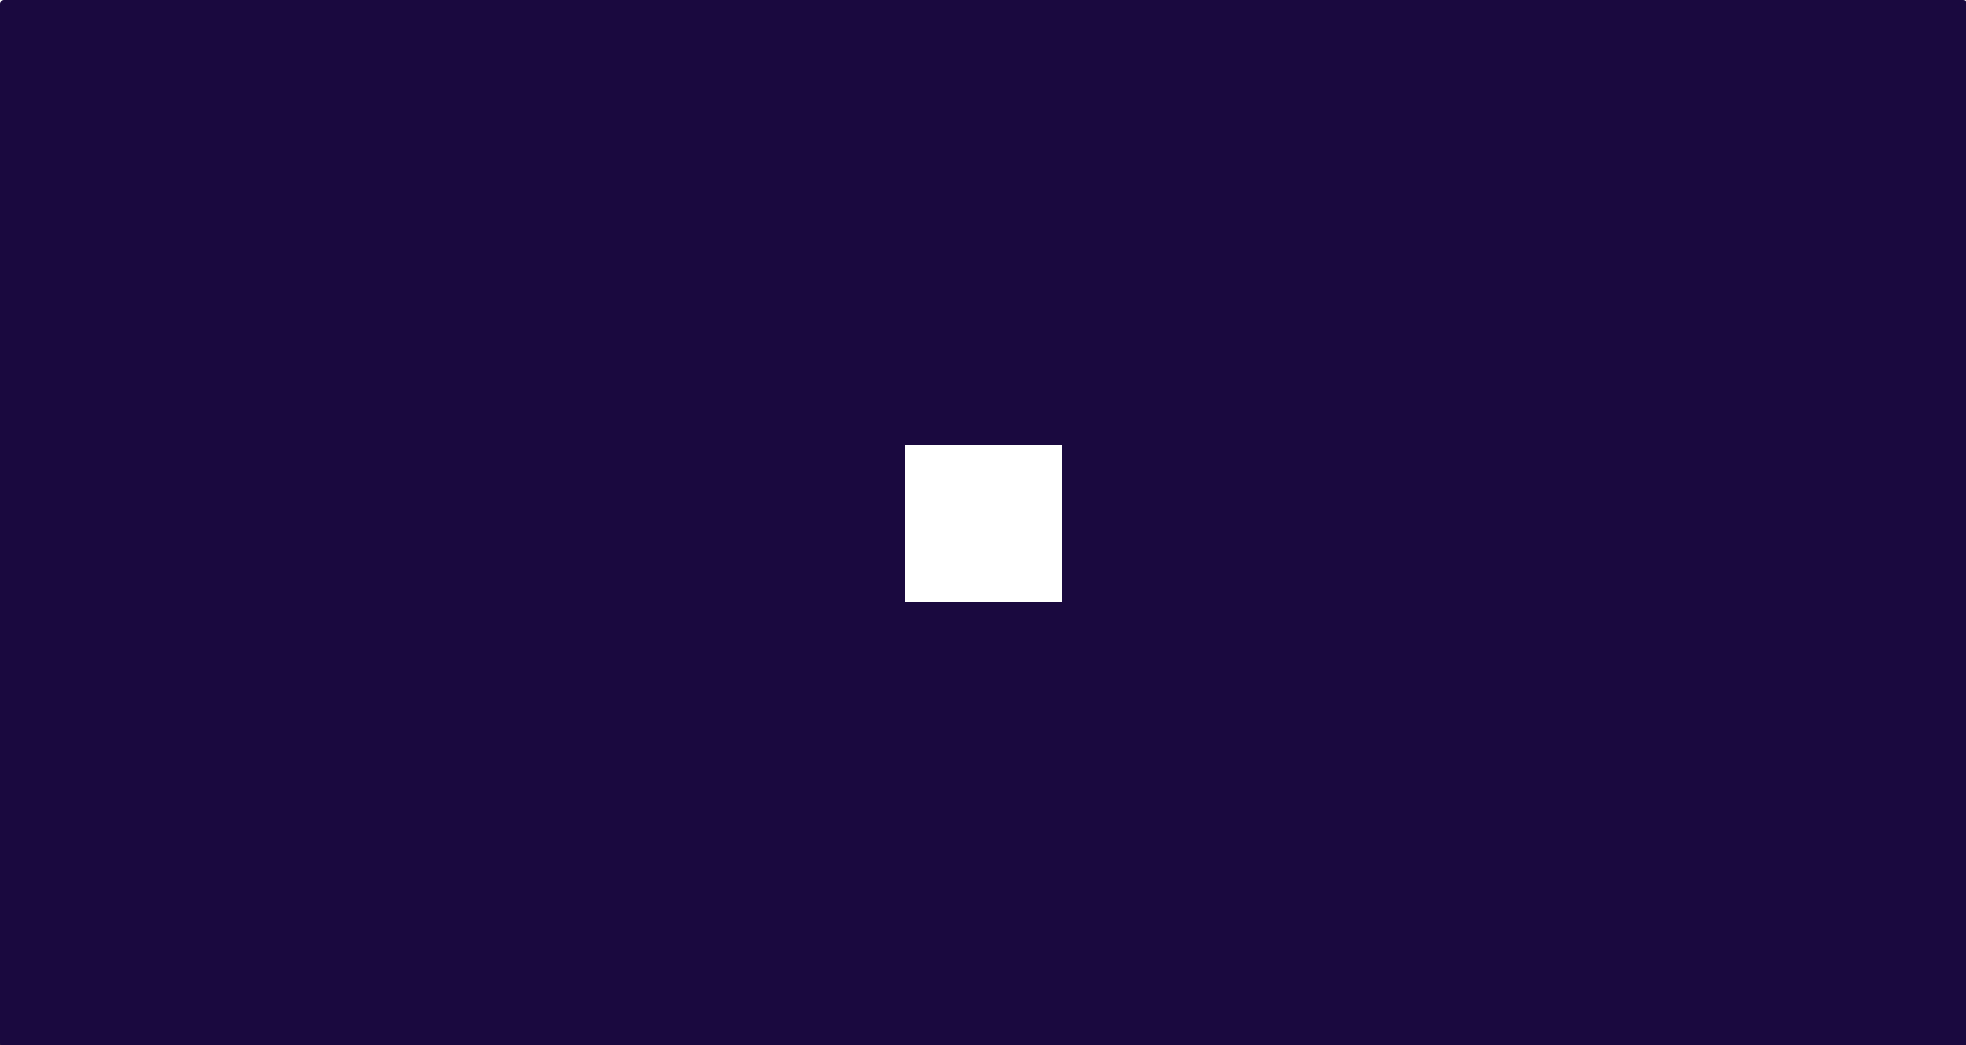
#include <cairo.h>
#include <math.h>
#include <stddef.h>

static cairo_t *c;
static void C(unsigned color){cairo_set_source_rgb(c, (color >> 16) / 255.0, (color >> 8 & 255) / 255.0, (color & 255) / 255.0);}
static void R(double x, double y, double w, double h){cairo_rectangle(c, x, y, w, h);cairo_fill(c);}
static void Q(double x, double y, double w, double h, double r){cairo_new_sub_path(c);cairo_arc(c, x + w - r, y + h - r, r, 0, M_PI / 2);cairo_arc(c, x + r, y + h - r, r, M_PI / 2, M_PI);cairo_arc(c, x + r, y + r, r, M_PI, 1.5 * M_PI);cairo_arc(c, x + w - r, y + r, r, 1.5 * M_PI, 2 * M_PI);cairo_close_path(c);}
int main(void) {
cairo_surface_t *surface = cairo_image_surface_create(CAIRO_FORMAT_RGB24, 1966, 1045);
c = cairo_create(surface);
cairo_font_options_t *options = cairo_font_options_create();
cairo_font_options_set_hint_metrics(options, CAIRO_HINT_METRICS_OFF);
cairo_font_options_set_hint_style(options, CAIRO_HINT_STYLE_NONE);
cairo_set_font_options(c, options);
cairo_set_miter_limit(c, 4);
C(0xffffff);
cairo_paint(c);
C(0x32323a);
R(0,1043,1,2);
C(0x1a093f);
Q(0,0,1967,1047,4);
cairo_fill(c);
C(0xffffff);
R(905,445,157,157);
cairo_surface_write_to_png(surface, "o.png");
cairo_font_options_destroy(options);
cairo_destroy(c);
cairo_surface_destroy(surface);
return 0;
}
